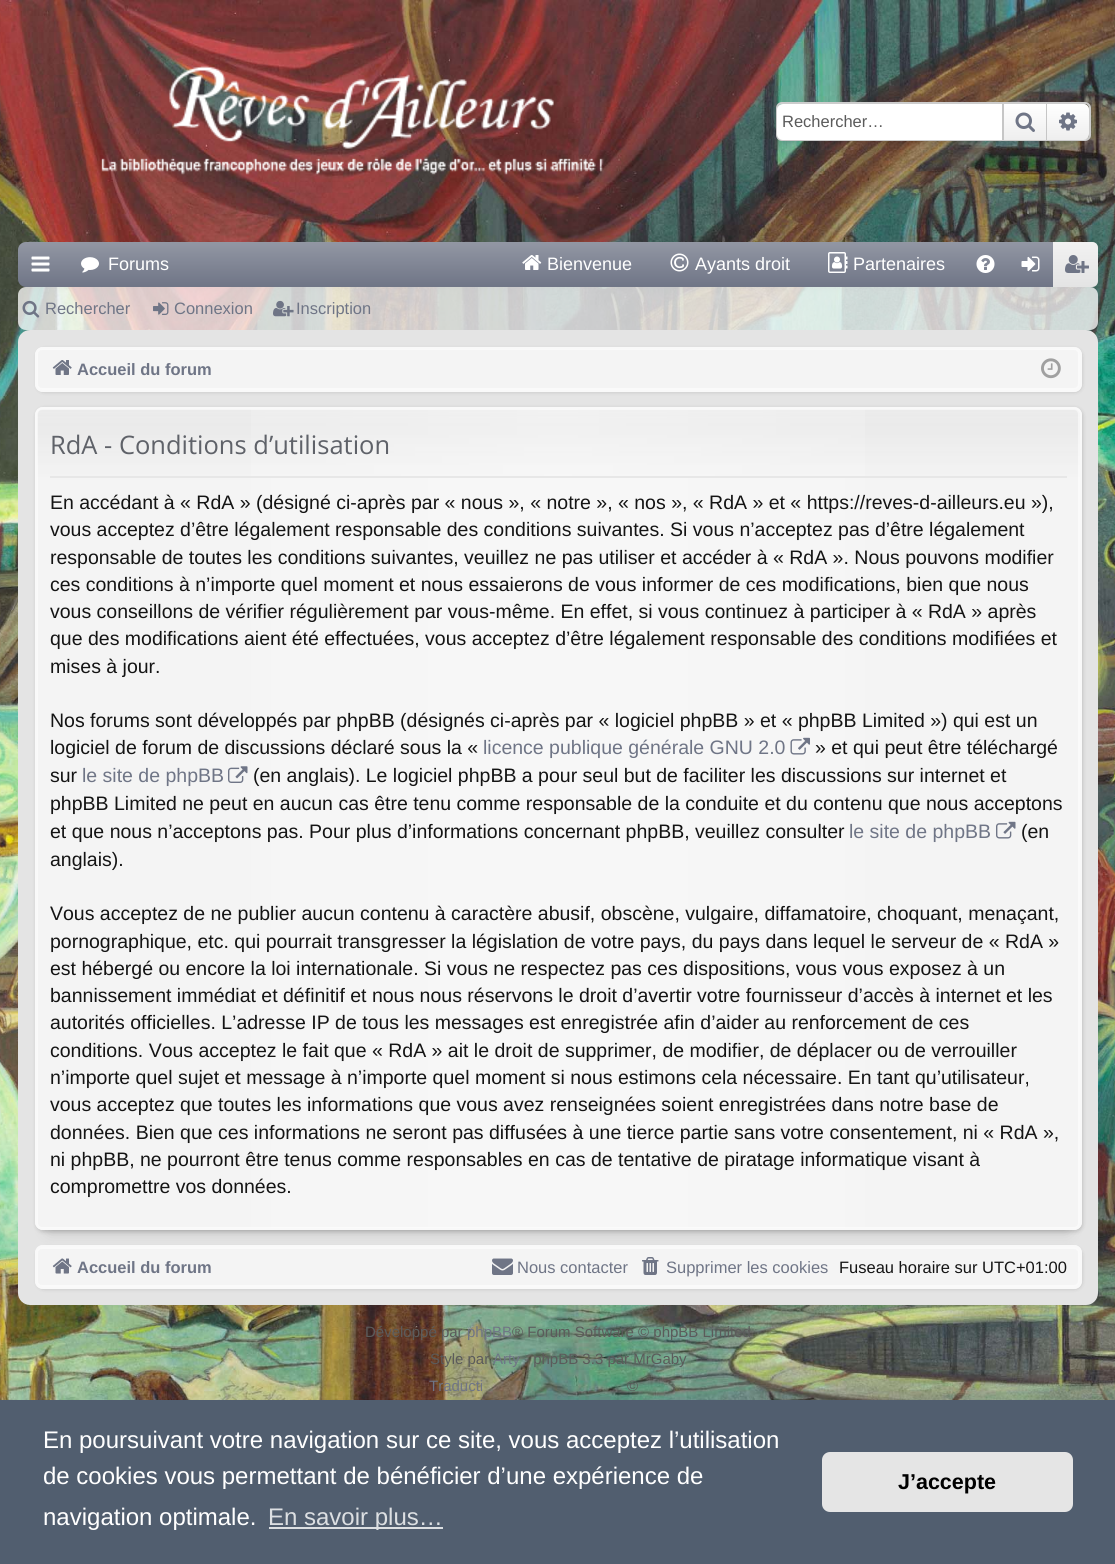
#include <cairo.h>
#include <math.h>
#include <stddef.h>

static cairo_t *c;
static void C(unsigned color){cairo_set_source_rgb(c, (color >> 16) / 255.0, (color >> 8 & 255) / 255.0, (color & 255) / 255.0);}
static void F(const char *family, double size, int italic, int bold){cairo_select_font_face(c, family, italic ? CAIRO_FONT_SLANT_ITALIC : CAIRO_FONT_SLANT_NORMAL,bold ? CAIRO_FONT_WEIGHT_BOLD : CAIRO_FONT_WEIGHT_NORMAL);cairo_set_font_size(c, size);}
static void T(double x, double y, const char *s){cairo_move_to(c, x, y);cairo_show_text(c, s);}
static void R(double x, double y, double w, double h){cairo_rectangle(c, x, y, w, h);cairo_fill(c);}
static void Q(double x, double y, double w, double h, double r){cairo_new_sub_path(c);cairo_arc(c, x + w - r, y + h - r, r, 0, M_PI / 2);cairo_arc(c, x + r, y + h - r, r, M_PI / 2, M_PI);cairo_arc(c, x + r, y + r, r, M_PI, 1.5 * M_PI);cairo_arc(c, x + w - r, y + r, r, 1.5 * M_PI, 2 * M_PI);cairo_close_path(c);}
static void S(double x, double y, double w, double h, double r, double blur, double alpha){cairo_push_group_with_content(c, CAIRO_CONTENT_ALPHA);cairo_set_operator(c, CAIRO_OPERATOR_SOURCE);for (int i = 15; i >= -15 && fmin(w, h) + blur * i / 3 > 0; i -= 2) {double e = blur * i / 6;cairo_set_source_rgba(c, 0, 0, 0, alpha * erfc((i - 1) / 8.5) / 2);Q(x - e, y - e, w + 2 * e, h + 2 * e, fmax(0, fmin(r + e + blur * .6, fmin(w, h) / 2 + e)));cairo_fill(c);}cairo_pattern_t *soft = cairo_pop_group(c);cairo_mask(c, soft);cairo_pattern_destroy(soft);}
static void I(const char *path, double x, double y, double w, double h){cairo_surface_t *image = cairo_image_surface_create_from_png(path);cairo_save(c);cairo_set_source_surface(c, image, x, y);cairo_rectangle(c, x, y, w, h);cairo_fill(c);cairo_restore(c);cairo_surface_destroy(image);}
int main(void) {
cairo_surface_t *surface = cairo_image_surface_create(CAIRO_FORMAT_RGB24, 1115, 1564);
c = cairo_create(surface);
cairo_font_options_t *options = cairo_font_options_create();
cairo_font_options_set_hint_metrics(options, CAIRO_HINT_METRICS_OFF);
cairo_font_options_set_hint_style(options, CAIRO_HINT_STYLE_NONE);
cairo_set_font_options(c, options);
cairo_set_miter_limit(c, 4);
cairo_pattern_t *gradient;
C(0xffffff);
cairo_paint(c);
I("1.png",0,0,1115,1400);
I("2.png",101,65,503,110);
C(0x000000);
S(777,104,315,39,6,2,.1);
Q(777,103,313,37,5);
C(0xcccccc);
cairo_stroke(c);
C(0xffffff);
cairo_new_path(c);
cairo_move_to(c,783,104);
cairo_line_to(c,1002,104);
cairo_line_to(c,1002,140);
cairo_line_to(c,783,140);
cairo_curve_to(c,779.5,140,777,137.5,777,134);
cairo_line_to(c,777,110);
cairo_curve_to(c,777,106.5,779.5,104,783,104);
cairo_close_path(c);
cairo_fill(c);
F("Liberation Sans",16.5,0,0);
C(0x5b5b5b);
T(782,127,"Rechercher…");
gradient = cairo_pattern_create_linear(1025,104,1025,140);
cairo_pattern_add_color_stop_rgba(gradient,0,1,1,1,1);
cairo_pattern_add_color_stop_rgba(gradient,1,0.933,0.933,0.933,1);
cairo_set_source(c,gradient);
cairo_pattern_destroy(gradient);
R(1004,104,42,36);
C(0xc6c6c6);
R(1046,104,1,36);
R(1002,104,2,36);
I("3.png",1015,112,20,20);
C(0xeeeeee);
cairo_new_path(c);
cairo_move_to(c,1047,104);
cairo_line_to(c,1083,104);
cairo_curve_to(c,1086.5,104,1089,106.5,1089,110);
cairo_line_to(c,1089,134);
cairo_curve_to(c,1089,137.5,1086.5,140,1083,140);
cairo_line_to(c,1047,140);
cairo_close_path(c);
cairo_fill(c);
gradient = cairo_pattern_create_linear(1068,104,1068,140);
cairo_pattern_add_color_stop_rgba(gradient,0,1,1,1,1);
cairo_pattern_add_color_stop_rgba(gradient,1,1,1,1,0);
cairo_set_source(c,gradient);
cairo_pattern_destroy(gradient);
cairo_new_path(c);
cairo_move_to(c,1047,104);
cairo_line_to(c,1083,104);
cairo_curve_to(c,1086.5,104,1089,106.5,1089,110);
cairo_line_to(c,1089,134);
cairo_curve_to(c,1089,137.5,1086.5,140,1083,140);
cairo_line_to(c,1047,140);
cairo_close_path(c);
cairo_fill(c);
I("4.png",1059,112,18,19);
C(0x000000);
S(26,257,1065,30,0,4,.2);
C(0x6f7586);
Q(18,242,1080,45,8);
cairo_fill(c);
gradient = cairo_pattern_create_linear(558,241,558,287);
cairo_pattern_add_color_stop_rgba(gradient,0,1,1,1,.25);
cairo_pattern_add_color_stop_rgba(gradient,1,1,1,1,0);
cairo_set_source(c,gradient);
cairo_pattern_destroy(gradient);
Q(18,242,1080,45,8);
cairo_fill(c);
I("5.png",31,256,19,16);
I("6.png",81,257,18,16);
F("Liberation Sans",18,0,0);
C(0xffffff);
T(108,270,"Forums");
I("7.png",522,255,20,15);
T(547,270,"Bienvenue");
I("8.png",670,253,19,19);
T(695,270,"Ayants droit");
I("9.png",828,252,20,21);
T(853,270,"Partenaires");
I("10.png",976,255,19,18);
I("11.png",1021,256,19,16);
C(0xe4e4e4);
cairo_new_path(c);
cairo_move_to(c,1053,242);
cairo_line_to(c,1092,242);
cairo_curve_to(c,1095.5,242,1098,244.5,1098,248);
cairo_line_to(c,1098,281);
cairo_curve_to(c,1098,284.5,1095.5,287,1092,287);
cairo_line_to(c,1053,287);
cairo_close_path(c);
cairo_fill(c);
gradient = cairo_pattern_create_linear(1076,242,1076,287);
cairo_pattern_add_color_stop_rgba(gradient,0,1,1,1,.5);
cairo_pattern_add_color_stop_rgba(gradient,1,1,1,1,0);
cairo_set_source(c,gradient);
cairo_pattern_destroy(gradient);
cairo_new_path(c);
cairo_move_to(c,1053,242);
cairo_line_to(c,1092,242);
cairo_curve_to(c,1095.5,242,1098,244.5,1098,248);
cairo_line_to(c,1098,281);
cairo_curve_to(c,1098,284.5,1095.5,287,1092,287);
cairo_line_to(c,1053,287);
cairo_close_path(c);
cairo_fill(c);
I("12.png",1065,255,24,18);
cairo_set_source_rgba(c,1,1,1,0.75);
Q(18,287,1080,43,8);
cairo_fill(c);
I("13.png",22,300,18,18);
F("Liberation Sans",16.5,0,0);
C(0x6f7586);
T(45,314,"Rechercher");
I("14.png",153,302,16,13);
T(174,314,"Connexion");
I("15.png",273,300,21,17);
T(296,314,"Inscription");
C(0xe4e4e4);
Q(19,331,1078,973,11);
cairo_fill_preserve(c);
cairo_stroke(c);
C(0x000000);
S(36,348,1047,45,8,1.5,.1);
C(0xf4f4f4);
Q(35,347,1047,45,8);
cairo_fill(c);
Q(37,349,1042,40,5);
C(0xfafafa);
cairo_stroke(c);
Q(36,348,1045,43,7);
C(0xf9f9f9);
cairo_stroke(c);
I("16.png",52,360,20,15);
F("Liberation Sans",16.5,0,1);
C(0x6f7586);
T(77,375,"Accueil du forum");
I("17.png",1041,358,20,21);
C(0x000000);
S(50,437,1017,793,0,7.5,.2);
S(36,408,1047,824,8,2,.15);
C(0xf4f4f4);
Q(35,407,1047,823,8);
cairo_fill(c);
cairo_save(c);
Q(35,407,1047,823,8);
cairo_clip(c);
gradient = cairo_pattern_create_linear(558,408,558,1229);
cairo_pattern_add_color_stop_rgba(gradient,0,0.8,0.8,0.8,.2);
cairo_pattern_add_color_stop_rgba(gradient,.02,0.8,0.8,0.8,.25);
cairo_pattern_add_color_stop_rgba(gradient,.09,0.8,0.8,0.8,0);
cairo_set_source(c,gradient);
cairo_pattern_destroy(gradient);
R(35,408,1047,69);
cairo_restore(c);
gradient = cairo_pattern_create_linear(36,818,1080,818);
cairo_pattern_add_color_stop_rgba(gradient,0,1,1,1,0);
cairo_pattern_add_color_stop_rgba(gradient,.5,1,1,1,.3);
cairo_pattern_add_color_stop_rgba(gradient,1,1,1,1,0);
cairo_set_source(c,gradient);
cairo_pattern_destroy(gradient);
R(251,409,614,819);
Q(37,409,1042,819,5);
cairo_set_source_rgba(c,1,1,1,0.5);
cairo_stroke(c);
Q(36,408,1045,821,7);
C(0xf9f9f9);
cairo_stroke(c);
C(0xe7e7e7);
R(50,476,1017,2);
F("Open Sans",25.5,0,0);
C(0x5f6269);
T(50,454,"RdA - Conditions d’utilisation");
F("Liberation Sans",19.5,0,0);
C(0x141414);
T(50,509,"En accédant à « RdA » (désigné ci-après par « nous », « notre », « nos », « RdA » et « https://reves-d-ailleurs.eu »),");
T(50,536,"vous acceptez d’être légalement responsable des conditions suivantes. Si vous n’acceptez pas d’être légalement");
T(50,564,"responsable de toutes les conditions suivantes, veuillez ne pas utiliser et accéder à « RdA ». Nous pouvons modifier");
T(50,591,"ces conditions à n’importe quel moment et nous essaierons de vous informer de ces modifications, bien que nous");
T(50,618,"vous conseillons de vérifier régulièrement par vous-même. En effet, si vous continuez à participer à « RdA » après");
T(50,645,"que des modifications aient été effectuées, vous acceptez d’être légalement responsable des conditions modifiées et");
T(50,673,"mises à jour.");
T(50,727,"Nos forums sont développés par phpBB (désignés ci-après par « logiciel phpBB » et « phpBB Limited ») qui est un");
T(50,754,"logiciel de forum de discussions déclaré sous la «");
C(0x6f7586);
T(483,754,"licence publique générale GNU 2.0");
I("18.png",790,737,20,18);
C(0x141414);
T(815,754,"» et qui peut être téléchargé");
T(50,782,"sur");
C(0x6f7586);
T(82,782,"le site de phpBB");
I("19.png",228,766,20,17);
C(0x141414);
T(253,782,"(en anglais). Le logiciel phpBB a pour seul but de faciliter les discussions sur internet et");
T(50,810,"phpBB Limited ne peut en aucun cas être tenu comme responsable de la conduite et du contenu que nous acceptons");
T(50,838,"et que nous n’acceptons pas. Pour plus d’informations concernant phpBB, veuillez consulter");
C(0x6f7586);
T(849,838,"le site de phpBB");
I("20.png",996,821,20,18);
C(0x141414);
T(1021,838,"(en");
T(50,866,"anglais).");
T(50,920,"Vous acceptez de ne publier aucun contenu à caractère abusif, obscène, vulgaire, diffamatoire, choquant, menaçant,");
T(50,948,"pornographique, etc. qui pourrait transgresser la législation de votre pays, du pays dans lequel le serveur de « RdA »");
T(50,975,"est hébergé ou encore la loi internationale. Si vous ne respectez pas ces dispositions, vous vous exposez à un");
T(50,1002,"bannissement immédiat et définitif et nous nous réservons le droit d’avertir votre fournisseur d’accès à internet et les");
T(50,1029,"autorités officielles. L’adresse IP de tous les messages est enregistrée afin d’aider au renforcement de ces");
T(50,1057,"conditions. Vous acceptez le fait que « RdA » ait le droit de supprimer, de modifier, de déplacer ou de verrouiller");
T(50,1084,"n’importe quel sujet et message à n’importe quel moment si nous estimons cela nécessaire. En tant qu’utilisateur,");
T(50,1111,"vous acceptez que toutes les informations que vous avez renseignées soient enregistrées dans notre base de");
T(50,1139,"données. Bien que ces informations ne seront pas diffusées à une tierce partie sans votre consentement, ni « RdA »,");
T(50,1166,"ni phpBB, ne pourront être tenus comme responsables en cas de tentative de piratage informatique visant à");
T(50,1193,"compromettre vos données.");
C(0x000000);
S(36,1247,1047,43,8,1.5,.1);
C(0xf4f4f4);
Q(35,1245,1047,44,8);
cairo_fill(c);
Q(37,1248,1042,38,5);
C(0xfafafa);
cairo_stroke(c);
Q(36,1246,1045,42,7);
C(0xf9f9f9);
cairo_stroke(c);
I("21.png",52,1258,20,16);
F("Liberation Sans",16.5,0,1);
C(0x6f7586);
T(77,1273,"Accueil du forum");
I("22.png",492,1258,21,17);
F("Liberation Sans",16.5,0,0);
T(517,1273,"Nous contacter");
I("23.png",642,1257,17,18);
T(666,1273,"Supprimer les cookies");
C(0x141414);
T(839,1273,"Fuseau horaire sur UTC+01:00");
F("Liberation Sans",15,0,0);
C(0x5b5b5b);
T(365,1337,"Développé par");
C(0x6f7586);
T(467,1337,"phpBB");
C(0x5b5b5b);
T(512,1337,"® Forum Software © phpBB Limited");
T(430,1364,"Style par");
C(0x6f7586);
T(493,1364,"Arty");
C(0x5b5b5b);
T(524,1364,"- phpBB 3.3 par MrGaby");
C(0x6f7586);
T(429,1391,"Traducti");
C(0x5b5b5b);
T(627,1391,"©");
C(0x515e6f);
R(0,1400,1115,164);
F("Liberation Sans",24,0,0);
C(0xffffff);
T(43,1448,"En poursuivant votre navigation sur ce site, vous acceptez l’utilisation");
T(43,1484,"de cookies vous permettant de bénéficier d’une expérience de");
T(43,1525,"navigation optimale.");
C(0xdcdfe2);
R(269,1527,174,2);
T(268,1525,"En savoir plus…");
C(0xe5e5e5);
Q(822,1452,251,60,8);
cairo_fill(c);
F("Liberation Sans",21.5,0,1);
C(0x000000);
T(898,1489,"J’accepte");
cairo_surface_write_to_png(surface, "o.png");
cairo_font_options_destroy(options);
cairo_destroy(c);
cairo_surface_destroy(surface);
return 0;
}
